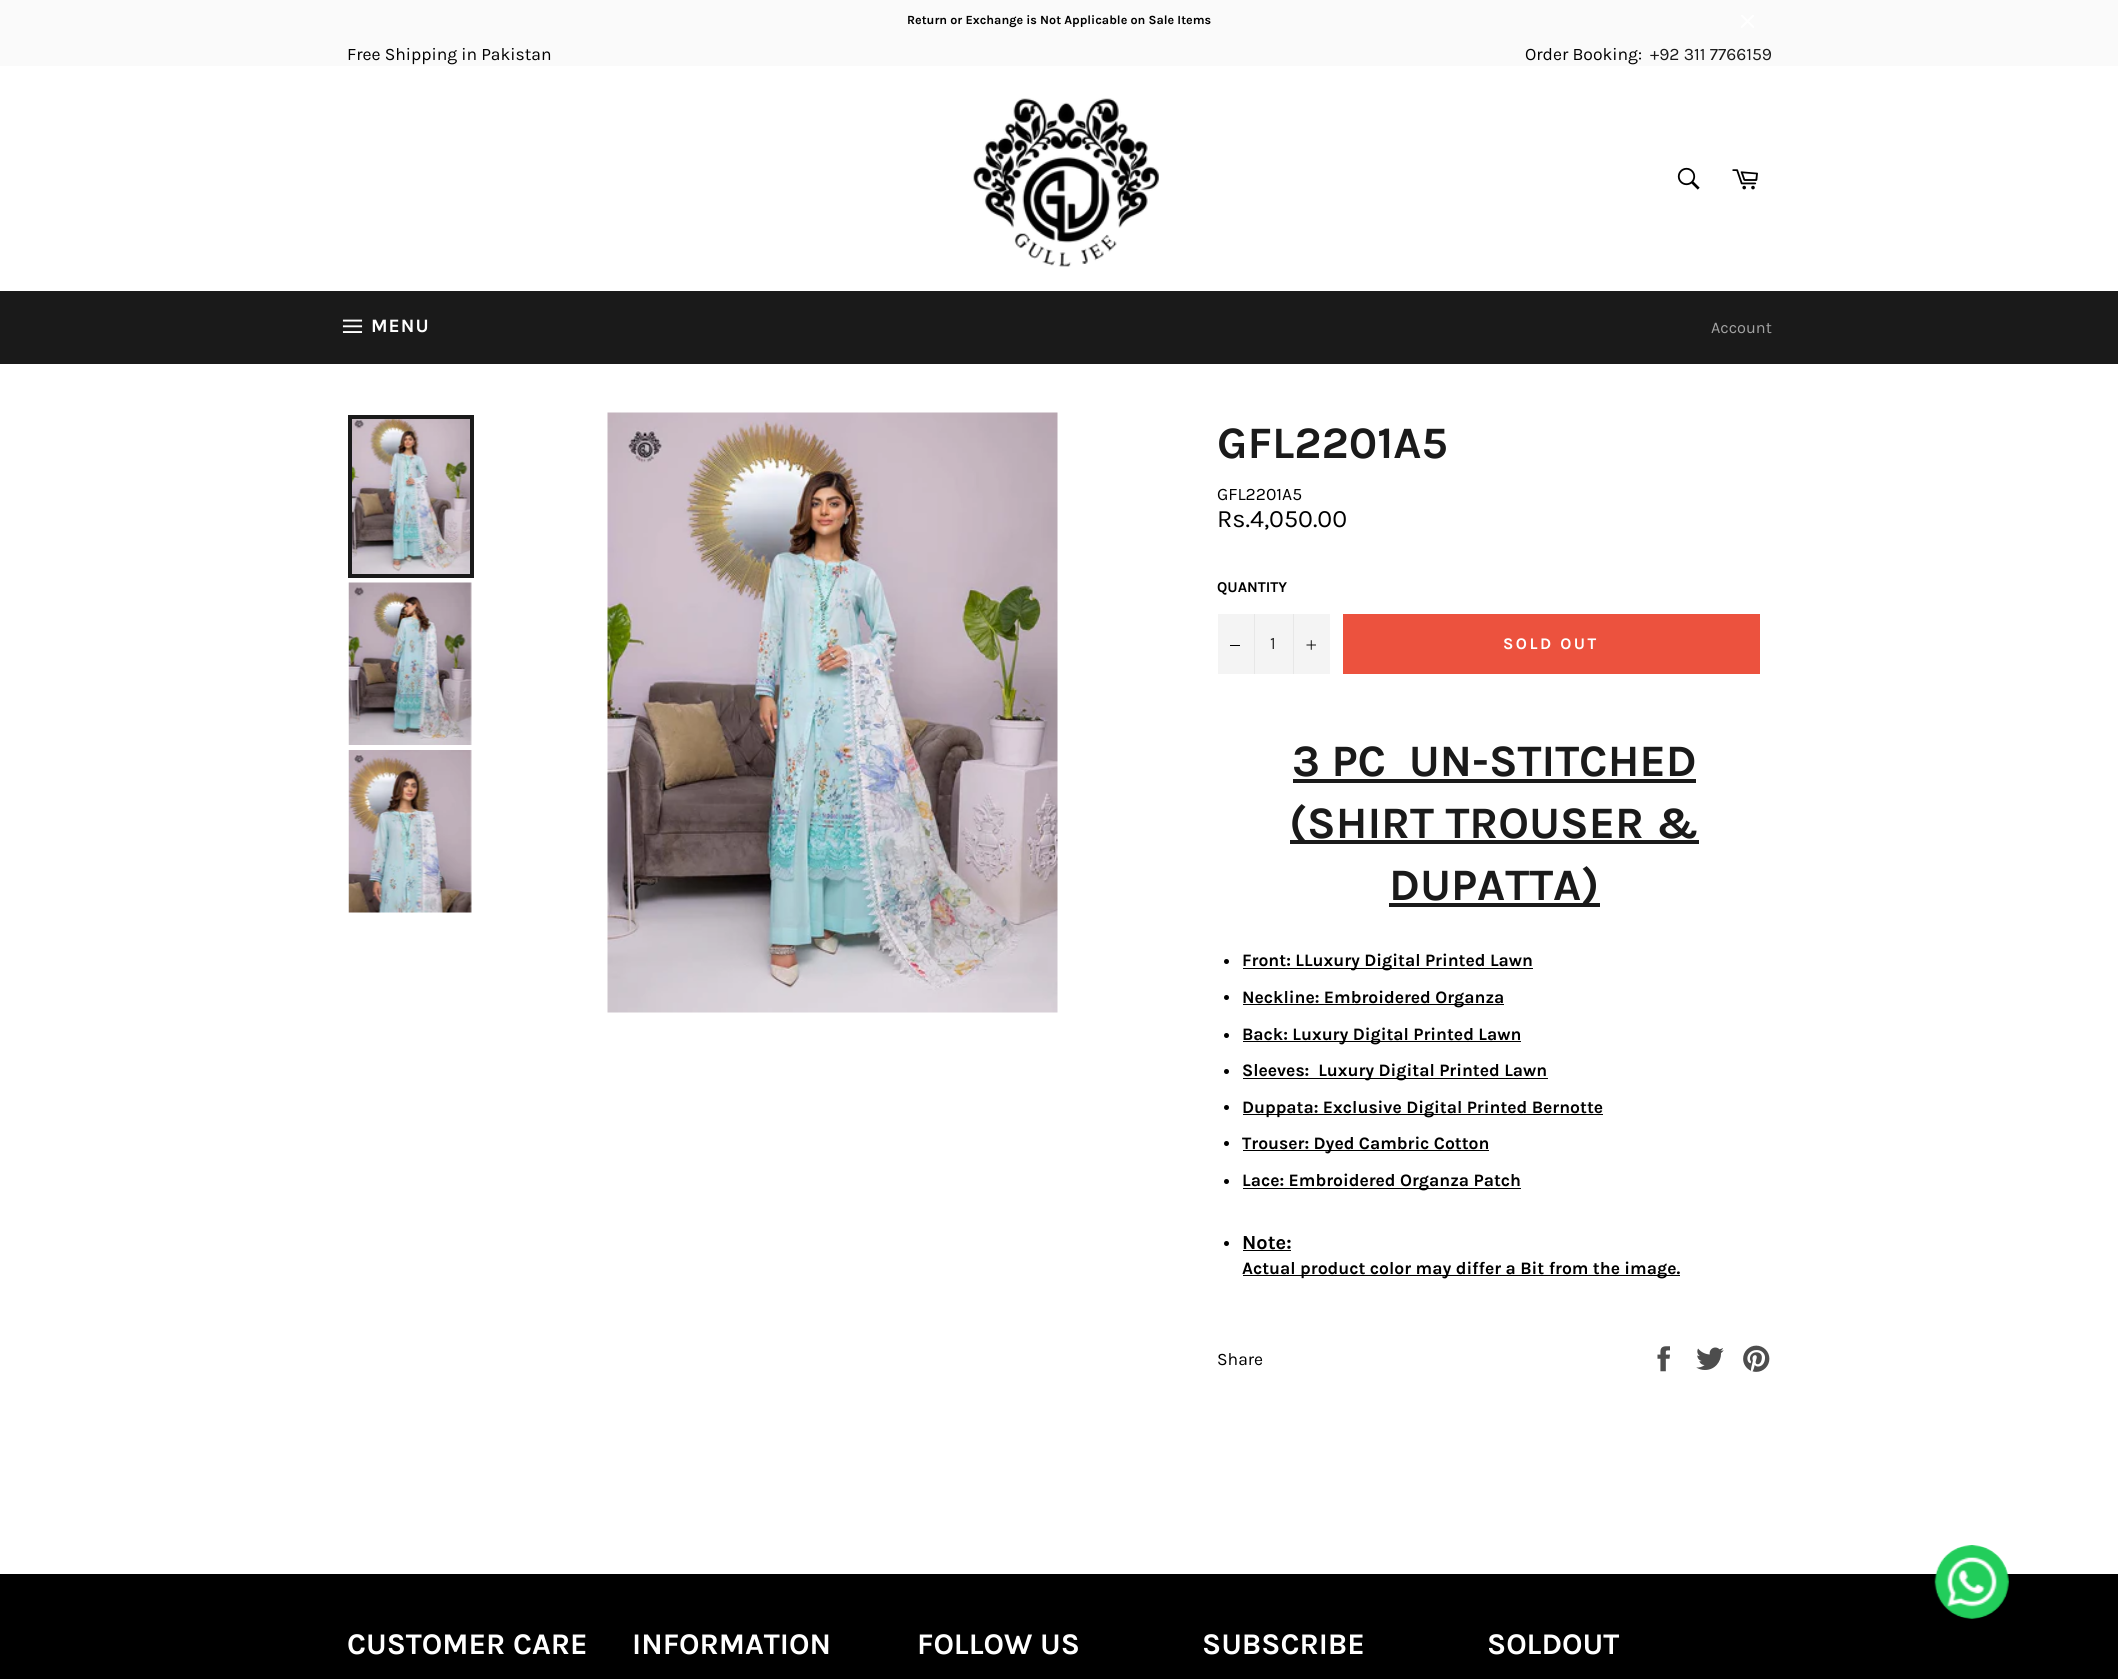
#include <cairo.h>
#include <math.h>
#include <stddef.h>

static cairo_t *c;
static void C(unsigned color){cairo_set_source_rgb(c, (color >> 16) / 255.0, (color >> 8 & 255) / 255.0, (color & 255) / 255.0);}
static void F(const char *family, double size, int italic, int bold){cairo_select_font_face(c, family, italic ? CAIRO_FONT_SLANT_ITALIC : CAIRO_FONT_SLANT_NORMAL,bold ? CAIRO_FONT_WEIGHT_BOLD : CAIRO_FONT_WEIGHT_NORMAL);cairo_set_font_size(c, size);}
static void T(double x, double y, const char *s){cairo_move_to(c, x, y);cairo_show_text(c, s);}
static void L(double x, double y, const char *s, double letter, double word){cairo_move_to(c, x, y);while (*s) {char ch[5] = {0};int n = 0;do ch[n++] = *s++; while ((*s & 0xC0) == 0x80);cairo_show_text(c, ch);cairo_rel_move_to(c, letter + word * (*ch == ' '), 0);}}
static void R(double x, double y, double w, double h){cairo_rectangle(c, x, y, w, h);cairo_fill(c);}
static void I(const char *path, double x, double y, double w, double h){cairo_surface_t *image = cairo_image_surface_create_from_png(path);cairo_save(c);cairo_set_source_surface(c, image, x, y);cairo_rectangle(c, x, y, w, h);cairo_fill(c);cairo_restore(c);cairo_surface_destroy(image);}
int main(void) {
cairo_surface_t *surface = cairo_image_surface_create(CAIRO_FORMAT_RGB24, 2118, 1679);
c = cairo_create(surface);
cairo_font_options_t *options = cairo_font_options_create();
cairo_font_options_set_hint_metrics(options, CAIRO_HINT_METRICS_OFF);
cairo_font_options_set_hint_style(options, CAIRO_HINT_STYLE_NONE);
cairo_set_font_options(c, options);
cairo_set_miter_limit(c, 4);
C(0xffffff);
cairo_paint(c);
C(0xfafafa);
R(0,0,2118,66);
F("Karla",12.5,0,1);
C(0x000000);
T(907,24,"Return or Exchange is Not Applicable on Sale Items");
I("1.png",1741,15,13,13);
F("Karla",17.5,0,0);
T(347,60,"Free Shipping in Pakistan");
T(1525,60,"Order Booking:");
C(0x1a1a1a);
T(1650,60,"+92 311 7766159");
I("2.png",973,98,186,169);
I("3.png",1677,167,23,23);
I("4.png",1732,169,26,21);
R(0,291,2118,73);
I("5.png",342,319,21,14);
F("Karla",19,0,1);
C(0xffffff);
L(371,332,"MENU",1,0);
F("Karla",16.25,0,0);
C(0xa3a3a3);
T(1711,333,"Account");
I("6.png",352,419,118,155);
cairo_rectangle(c,350,417,122,159);
C(0x1a1a1a);
cairo_set_line_width(c,4);
cairo_stroke(c);
I("7.png",348,582,124,163);
I("8.png",348,750,124,163);
I("9.png",607,412,451,601);
F("Karla",45,0,1);
T(1217,458,"GFL2201A5");
F("Karla",17.5,0,0);
C(0x000000);
T(1217,500,"GFL2201A5");
F("Karla",25,0,0);
T(1217,527,"Rs.4,050.00");
F("Karla",15,0,1);
T(1217,592,"QUANTITY");
C(0xf4f4f4);
R(1218,614,112,60);
C(0xe7e7e7);
R(1254,614,1,60);
C(0x000000);
R(1230,645,10,1);
F("Karla",17.5,0,0);
C(0x333333);
T(1270,649,"1");
C(0xe7e7e7);
R(1293,614,1,60);
I("10.png",1306,640,10,10);
C(0xec523e);
R(1343,614,417,60);
F("Karla",16.25,0,1);
C(0xffffff);
L(1503,649,"SOLD OUT",2.5,0);
F("Karla",45,0,1);
C(0x1a1a1a);
T(1292,776,"3 PC  UN-STITCHED");
R(1293,779,403,4);
R(1290,840,409,4);
T(1289,838,"(SHIRT TROUSER &");
R(1389,903,211,4);
T(1389,900,"DUPATTA)");
C(0x000000);
cairo_new_path(c);
cairo_arc(c,1226.5,961.5,2.5,0,2 * M_PI);
cairo_fill(c);
R(1243,968,290,1);
F("Karla",17.5,0,1);
T(1242,966,"Front: LLuxury Digital Printed Lawn");
cairo_new_path(c);
cairo_arc(c,1226.5,997.5,2.5,0,2 * M_PI);
cairo_fill(c);
R(1243,1004,261,1);
T(1242,1003,"Neckline: Embroidered Organza");
cairo_new_path(c);
cairo_arc(c,1226.5,1035.5,2.5,0,2 * M_PI);
cairo_fill(c);
R(1243,1041,278,1);
T(1242,1040,"Back: Luxury Digital Printed Lawn");
cairo_new_path(c);
cairo_arc(c,1226.5,1071.5,2.5,0,2 * M_PI);
cairo_fill(c);
R(1243,1078,305,1);
T(1242,1076,"Sleeves:  Luxury Digital Printed Lawn");
cairo_new_path(c);
cairo_arc(c,1226.5,1107.5,2.5,0,2 * M_PI);
cairo_fill(c);
R(1243,1114,360,1);
T(1242,1113,"Duppata: Exclusive Digital Printed Bernotte");
cairo_new_path(c);
cairo_arc(c,1226.5,1143.5,2.5,0,2 * M_PI);
cairo_fill(c);
R(1243,1150,246,1);
T(1242,1149,"Trouser: Dyed Cambric Cotton");
cairo_new_path(c);
cairo_arc(c,1226.5,1181.5,2.5,0,2 * M_PI);
cairo_fill(c);
R(1243,1188,278,1);
T(1242,1186,"Lace: Embroidered Organza Patch");
cairo_new_path(c);
cairo_arc(c,1226.5,1243.5,2.5,0,2 * M_PI);
cairo_fill(c);
F("Karla",20,0,1);
T(1242,1249,"Note:");
R(1243,1250,48,1);
R(1243,1275,437,1);
F("Karla",17.5,0,1);
T(1242,1274,"Actual product color may differ a Bit from the image.");
F("Karla",17.5,0,0);
T(1217,1365,"Share");
I("11.png",1657,1346,13,26);
I("12.png",1696,1347,28,23);
I("13.png",1743,1345,27,27);
R(0,1574,2118,105);
F("Karla",30,0,1);
C(0xffffff);
T(347,1654,"CUSTOMER CARE");
T(632,1654,"INFORMATION");
T(917,1654,"FOLLOW US");
T(1202,1654,"SUBSCRIBE");
T(1487,1654,"SOLDOUT");
I("14.png",1934,1545,75,74);
cairo_surface_write_to_png(surface, "o.png");
cairo_font_options_destroy(options);
cairo_destroy(c);
cairo_surface_destroy(surface);
return 0;
}
